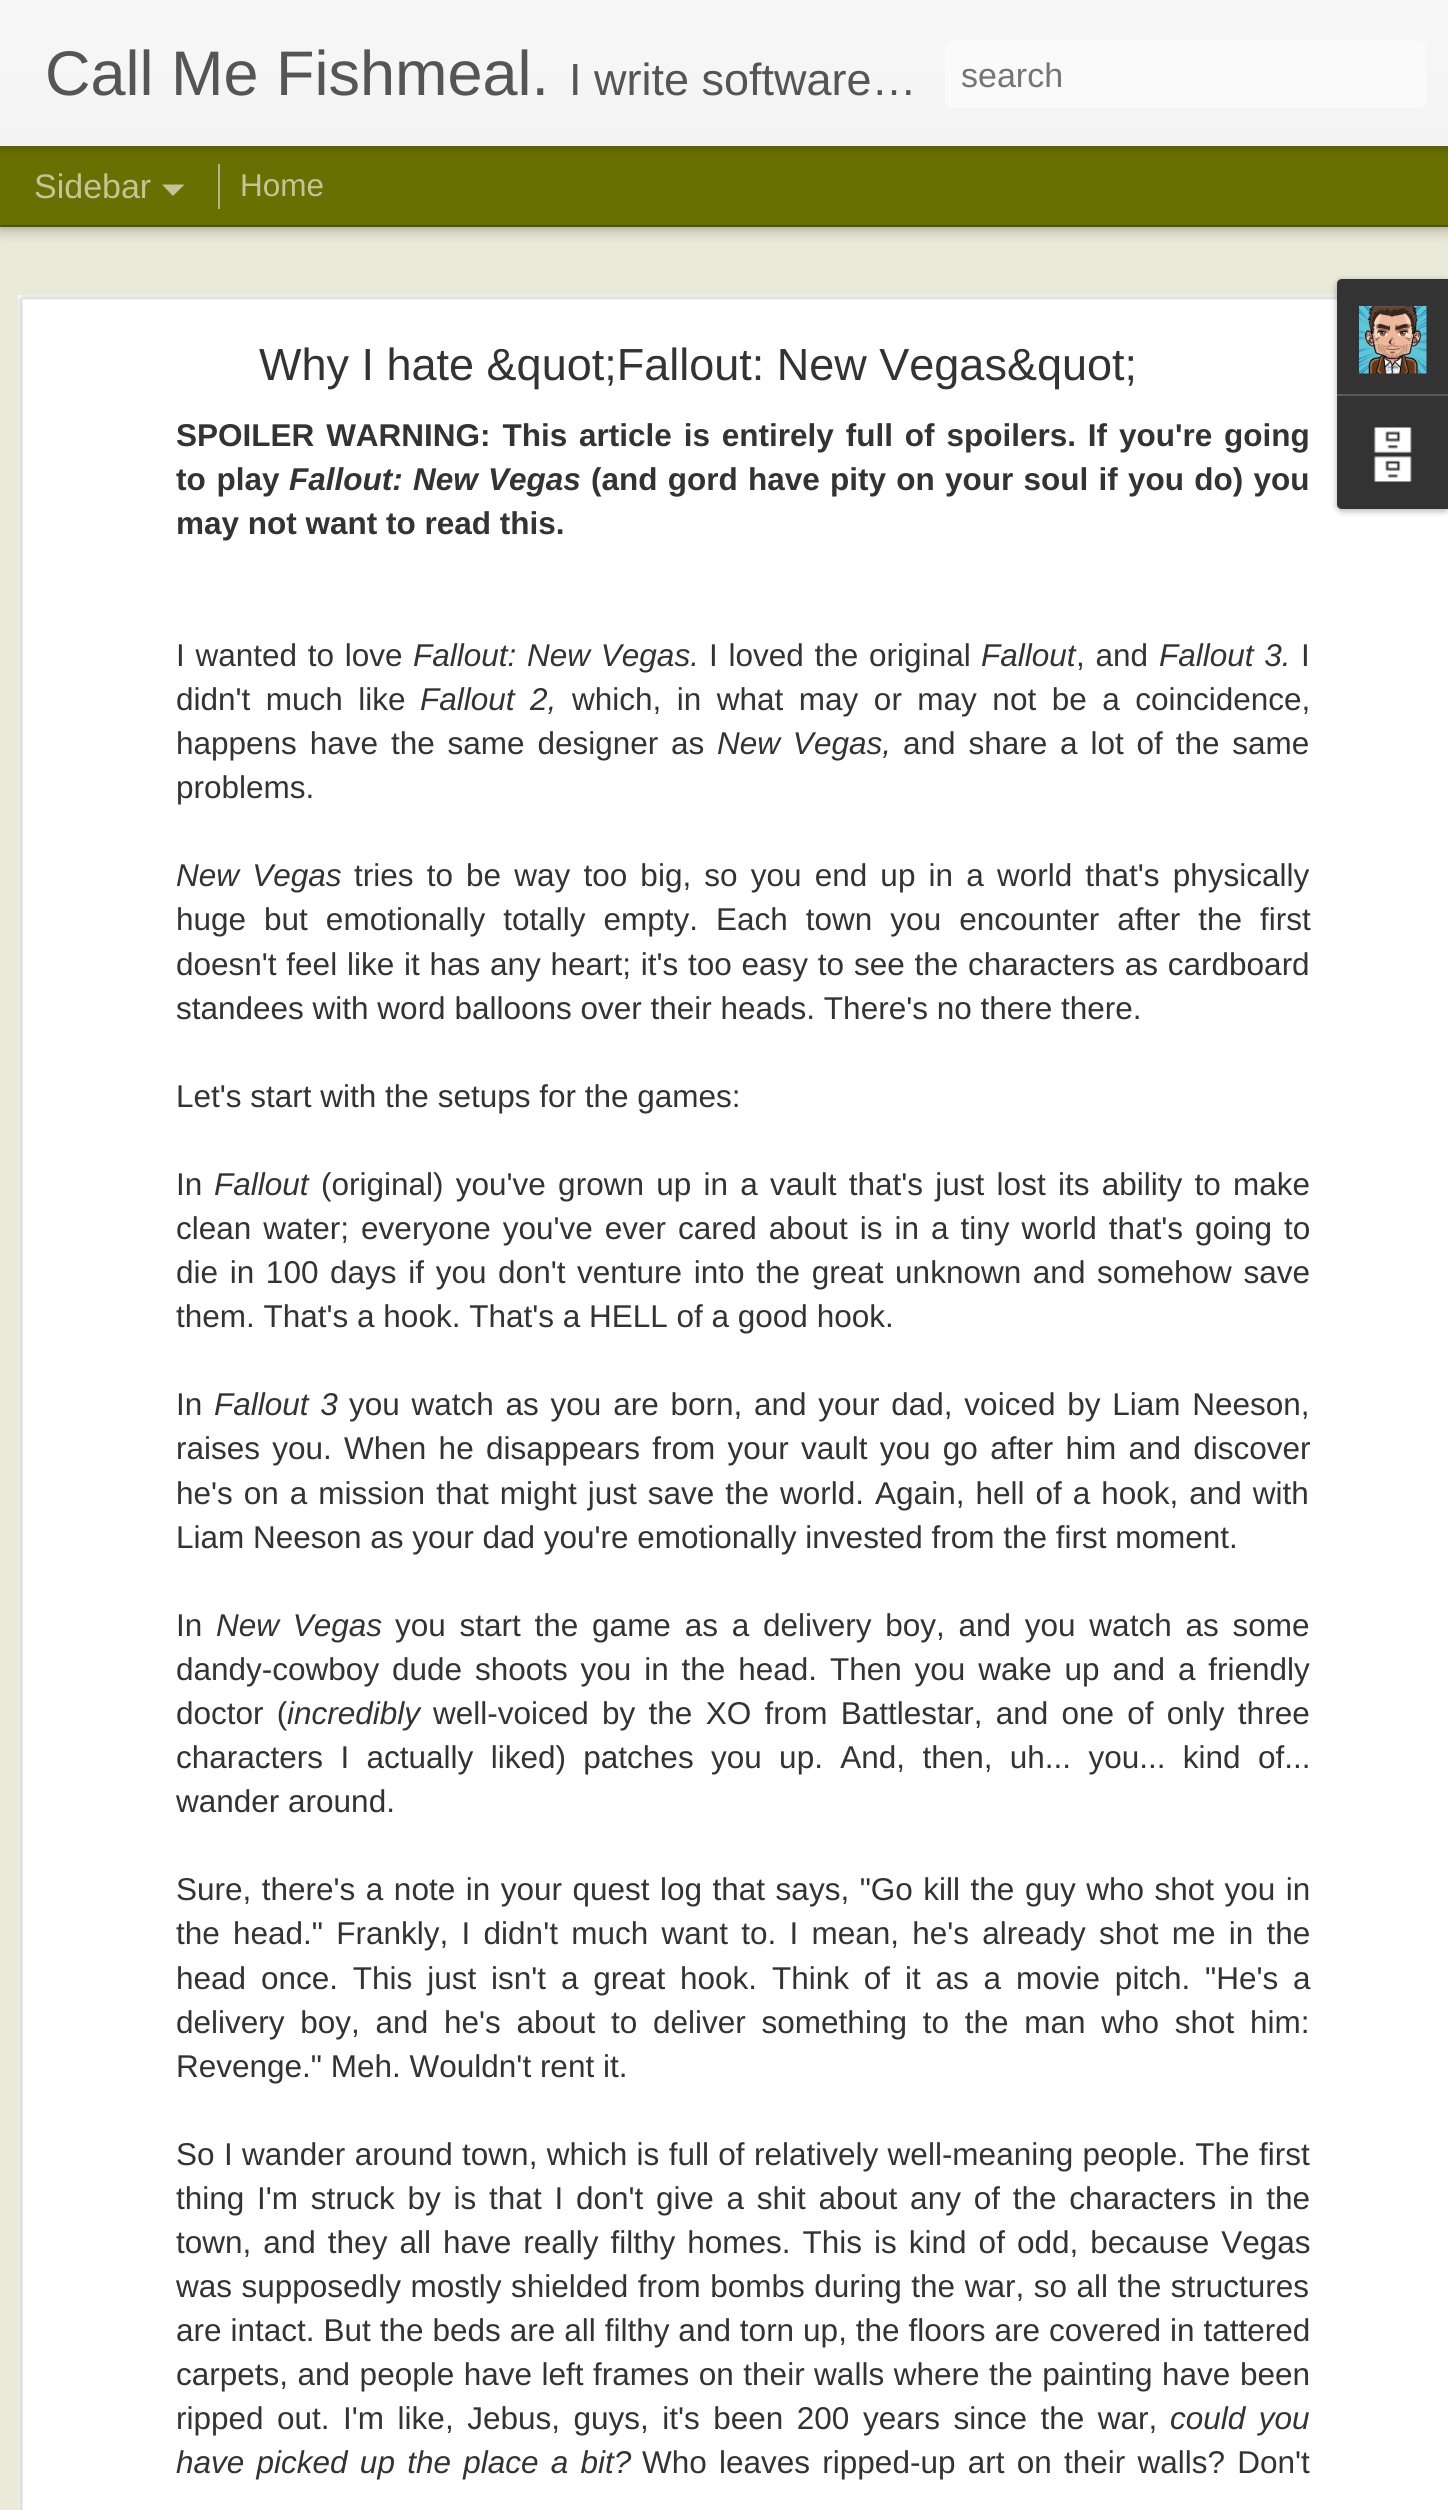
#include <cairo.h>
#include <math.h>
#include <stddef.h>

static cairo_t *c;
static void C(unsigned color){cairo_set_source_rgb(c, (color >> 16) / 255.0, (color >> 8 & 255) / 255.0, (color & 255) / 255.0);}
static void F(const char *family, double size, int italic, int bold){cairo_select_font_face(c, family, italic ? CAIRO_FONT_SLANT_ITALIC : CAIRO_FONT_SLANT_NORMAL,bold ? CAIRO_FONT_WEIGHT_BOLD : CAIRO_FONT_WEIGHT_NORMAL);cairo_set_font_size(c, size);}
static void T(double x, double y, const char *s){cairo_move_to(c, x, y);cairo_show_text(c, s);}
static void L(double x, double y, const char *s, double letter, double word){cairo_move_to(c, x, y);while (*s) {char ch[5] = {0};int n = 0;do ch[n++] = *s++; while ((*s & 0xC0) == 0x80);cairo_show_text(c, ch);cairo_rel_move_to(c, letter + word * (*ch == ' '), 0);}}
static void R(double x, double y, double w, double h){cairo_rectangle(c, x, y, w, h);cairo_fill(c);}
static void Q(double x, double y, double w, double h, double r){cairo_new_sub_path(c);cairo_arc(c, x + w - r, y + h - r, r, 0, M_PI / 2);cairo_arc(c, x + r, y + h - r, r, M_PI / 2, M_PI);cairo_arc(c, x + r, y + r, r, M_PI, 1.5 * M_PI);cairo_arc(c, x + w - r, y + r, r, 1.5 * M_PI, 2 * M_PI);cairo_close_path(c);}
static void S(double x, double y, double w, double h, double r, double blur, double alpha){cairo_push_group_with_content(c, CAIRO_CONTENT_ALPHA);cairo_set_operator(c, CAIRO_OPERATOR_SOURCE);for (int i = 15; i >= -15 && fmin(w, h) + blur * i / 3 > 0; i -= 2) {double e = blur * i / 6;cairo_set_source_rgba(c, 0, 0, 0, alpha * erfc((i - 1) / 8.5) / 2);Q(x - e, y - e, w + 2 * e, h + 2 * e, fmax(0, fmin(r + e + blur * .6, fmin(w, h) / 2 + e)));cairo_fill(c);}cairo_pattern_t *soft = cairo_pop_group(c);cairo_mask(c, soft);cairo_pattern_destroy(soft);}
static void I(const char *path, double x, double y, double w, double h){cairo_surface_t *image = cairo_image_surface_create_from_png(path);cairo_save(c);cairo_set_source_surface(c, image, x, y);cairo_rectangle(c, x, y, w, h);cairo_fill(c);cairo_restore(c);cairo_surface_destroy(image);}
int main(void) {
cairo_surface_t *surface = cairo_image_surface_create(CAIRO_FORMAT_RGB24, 1448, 2510);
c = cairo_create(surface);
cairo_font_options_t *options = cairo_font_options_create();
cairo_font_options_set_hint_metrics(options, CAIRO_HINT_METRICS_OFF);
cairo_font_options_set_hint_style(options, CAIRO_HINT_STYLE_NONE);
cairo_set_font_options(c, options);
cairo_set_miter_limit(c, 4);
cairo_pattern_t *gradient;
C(0x696f00);
cairo_paint(c);
C(0xe9ead9);
R(0,227,1448,2283);
C(0x000000);
S(0,146,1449,79,0,9,.5);
C(0x696f00);
R(0,146,1448,79);
C(0x000000);
S(0,0,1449,146,0,5.5,.3);
gradient = cairo_pattern_create_linear(0,0,0,146);
cairo_pattern_add_color_stop_rgba(gradient,0,0.969,0.969,0.969,1);
cairo_pattern_add_color_stop_rgba(gradient,1,0.957,0.957,0.957,1);
cairo_set_source(c,gradient);
cairo_pattern_destroy(gradient);
R(0,0,1448,146);
F("Liberation Sans",63,0,0);
C(0x555555);
T(45,95,"Call Me Fishmeal.");
F("Liberation Sans",45,0,0);
T(569,95,"I write software…");
C(0xfafafa);
Q(945,41,482,67,7);
cairo_fill(c);
F("Liberation Sans",34,0,0);
C(0x757575);
T(961,87,"search");
C(0xc3c599);
T(34,198,"Sidebar");
cairo_new_path(c);
cairo_move_to(c,162,184.5);
cairo_line_to(c,184.5,184.5);
cairo_line_to(c,173,196);
cairo_close_path(c);
cairo_fill(c);
C(0xb4b780);
R(218,164,2,45);
F("Liberation Sans",31.5,0,0);
C(0xc3c599);
T(240,196,"Home");
C(0xffffff);
R(18,295,1430,2215);
I("1.png",18,295,1319,2215);
F("Liberation Sans",45,0,0);
C(0x333333);
T(259,380,"Why I hate &quot;Fallout: New Vegas&quot;");
F("Liberation Sans",31.5,0,1);
L(176,446,"SPOILER WARNING: This article is entirely full of spoilers. If you're going",0,3.1);
L(176,490,"to play",0,2);
F("Liberation Sans",31.5,1,1);
L(289,490,"Fallout: New Vegas",0,1.5);
F("Liberation Sans",31.5,0,1);
L(591,490,"(and gord have pity on your soul if you do) you",0,1.5);
T(176,534,"may not want to read this.");
F("Liberation Sans",31.5,0,0);
L(176,666,"I wanted to love",0,2);
F("Liberation Sans",31.5,1,0);
L(413,666,"Fallout: New Vegas.",0,2);
F("Liberation Sans",31.5,0,0);
L(709,666,"I loved the original",0,2);
F("Liberation Sans",31.5,1,0);
T(981,666,"Fallout");
F("Liberation Sans",31.5,0,0);
L(1076,666,", and",0,2);
F("Liberation Sans",31.5,1,0);
L(1159,666,"Fallout 3.",0,2);
F("Liberation Sans",31.5,0,0);
T(1301,666,"I");
L(176,710,"didn't much like",0,6.75);
F("Liberation Sans",31.5,1,0);
L(420,710,"Fallout 2,",0,6.75);
F("Liberation Sans",31.5,0,0);
L(572,710,"which, in what may or may not be a coincidence,",0,6.75);
L(176,754,"happens have the same designer as",0,4.1);
F("Liberation Sans",31.5,1,0);
L(717,754,"New Vegas,",0,4.1);
F("Liberation Sans",31.5,0,0);
L(903,754,"and share a lot of the same",0,4.1);
T(176,798,"problems.");
F("Liberation Sans",31.5,1,0);
L(176,886,"New Vegas",0,4.4);
F("Liberation Sans",31.5,0,0);
L(354,886,"tries to be way too big, so you end up in a world that's physically",0,4.4);
L(176,930,"huge but emotionally totally empty. Each town you encounter after the first",0,9.25);
L(176,975,"doesn't feel like it has any heart; it's too easy to see the characters as cardboard",0,1);
T(176,1019,"standees with word balloons over their heads. There's no there there.");
T(176,1107,"Let's start with the setups for the games:");
T(176,1195,"In");
F("Liberation Sans",31.5,1,0);
T(214,1195,"Fallout");
F("Liberation Sans",31.5,0,0);
L(321,1195,"(original) you've grown up in a vault that's just lost its ability to make",0,3.5);
L(176,1239,"clean water; everyone you've ever cared about is in a tiny world that's going to",0,3.25);
L(176,1283,"die in 100 days if you don't venture into the great unknown and somehow save",0,2.9);
T(176,1327,"them. That's a hook. That's a HELL of a good hook.");
T(176,1415,"In");
F("Liberation Sans",31.5,1,0);
L(214,1415,"Fallout 3",0,3);
F("Liberation Sans",31.5,0,0);
L(349,1415,"you watch as you are born, and your dad, voiced by Liam Neeson,",0,3);
L(176,1459,"raises you. When he disappears from your vault you go after him and discover",0,3.5);
L(176,1504,"he's on a mission that might just save the world. Again, hell of a hook, and with",0,2.25);
T(176,1548,"Liam Neeson as your dad you're emotionally invested from the first moment.");
T(176,1636,"In");
F("Liberation Sans",31.5,1,0);
L(216,1636,"New Vegas",0,5);
F("Liberation Sans",31.5,0,0);
L(395,1636,"you start the game as a delivery boy, and you watch as some",0,5);
L(176,1680,"dandy-cowboy dude shoots you in the head. Then you wake up and a friendly",0,4.1);
L(176,1724,"doctor (",0,4.5);
F("Liberation Sans",31.5,1,0);
T(287,1724,"incredibly");
F("Liberation Sans",31.5,0,0);
L(433,1724,"well-voiced by the XO from Battlestar, and one of only three",0,4.5);
L(176,1768,"characters I actually liked) patches you up. And, then, uh... you... kind of...",0,8.6);
T(176,1812,"wander around.");
L(176,1900,"Sure, there's a note in your quest log that says, \"Go kill the guy who shot you in",0,1.75);
L(176,1944,"the head.\" Frankly, I didn't much want to. I mean, he's already shot me in the",0,4.5);
L(176,1989,"head once. This just isn't a great hook. Think of it as a movie pitch. \"He's a",0,6.1);
L(176,2033,"delivery boy, and he's about to deliver something to the man who shot him:",0,7);
T(176,2077,"Revenge.\" Meh. Wouldn't rent it.");
L(176,2165,"So I wander around town, which is full of relatively well-meaning people. The first",0,.6);
L(176,2209,"thing I'm struck by is that I don't give a shit about any of the characters in the",0,4);
L(176,2253,"town, and they all have really filthy homes. This is kind of odd, because Vegas",0,3.25);
L(176,2297,"was supposedly mostly shielded from bombs during the war, so all the structures",0,.75);
L(176,2341,"are intact. But the beds are all filthy and torn up, the floors are covered in tattered",0,.2);
L(176,2385,"carpets, and people have left frames on their walls where the painting have been",0,.75);
L(176,2429,"ripped out. I'm like, Jebus, guys, it's been 200 years since the war,",0,4.75);
F("Liberation Sans",31.5,1,0);
L(1170,2429,"could you",0,4.75);
L(176,2473,"have picked up the place a bit?",0,3.5);
F("Liberation Sans",31.5,0,0);
L(642,2473,"Who leaves ripped-up art on their walls? Don't",0,3.5);
C(0x000000);
S(1337,281,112,230,5,3.5,.3);
C(0x333333);
cairo_new_path(c);
cairo_move_to(c,1342,279);
cairo_line_to(c,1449,279);
cairo_line_to(c,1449,394);
cairo_line_to(c,1337,394);
cairo_line_to(c,1337,284);
cairo_curve_to(c,1337,281,1339,279,1342,279);
cairo_close_path(c);
cairo_fill(c);
I("2.png",1359,306,68,68);
cairo_new_path(c);
cairo_move_to(c,1337,394);
cairo_line_to(c,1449,394);
cairo_line_to(c,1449,509);
cairo_line_to(c,1342,509);
cairo_curve_to(c,1339,509,1337,507,1337,504);
cairo_close_path(c);
cairo_fill(c);
C(0x585858);
R(1337,394,111,2);
I("3.png",1374,427,38,55);
cairo_surface_write_to_png(surface, "o.png");
cairo_font_options_destroy(options);
cairo_destroy(c);
cairo_surface_destroy(surface);
return 0;
}
